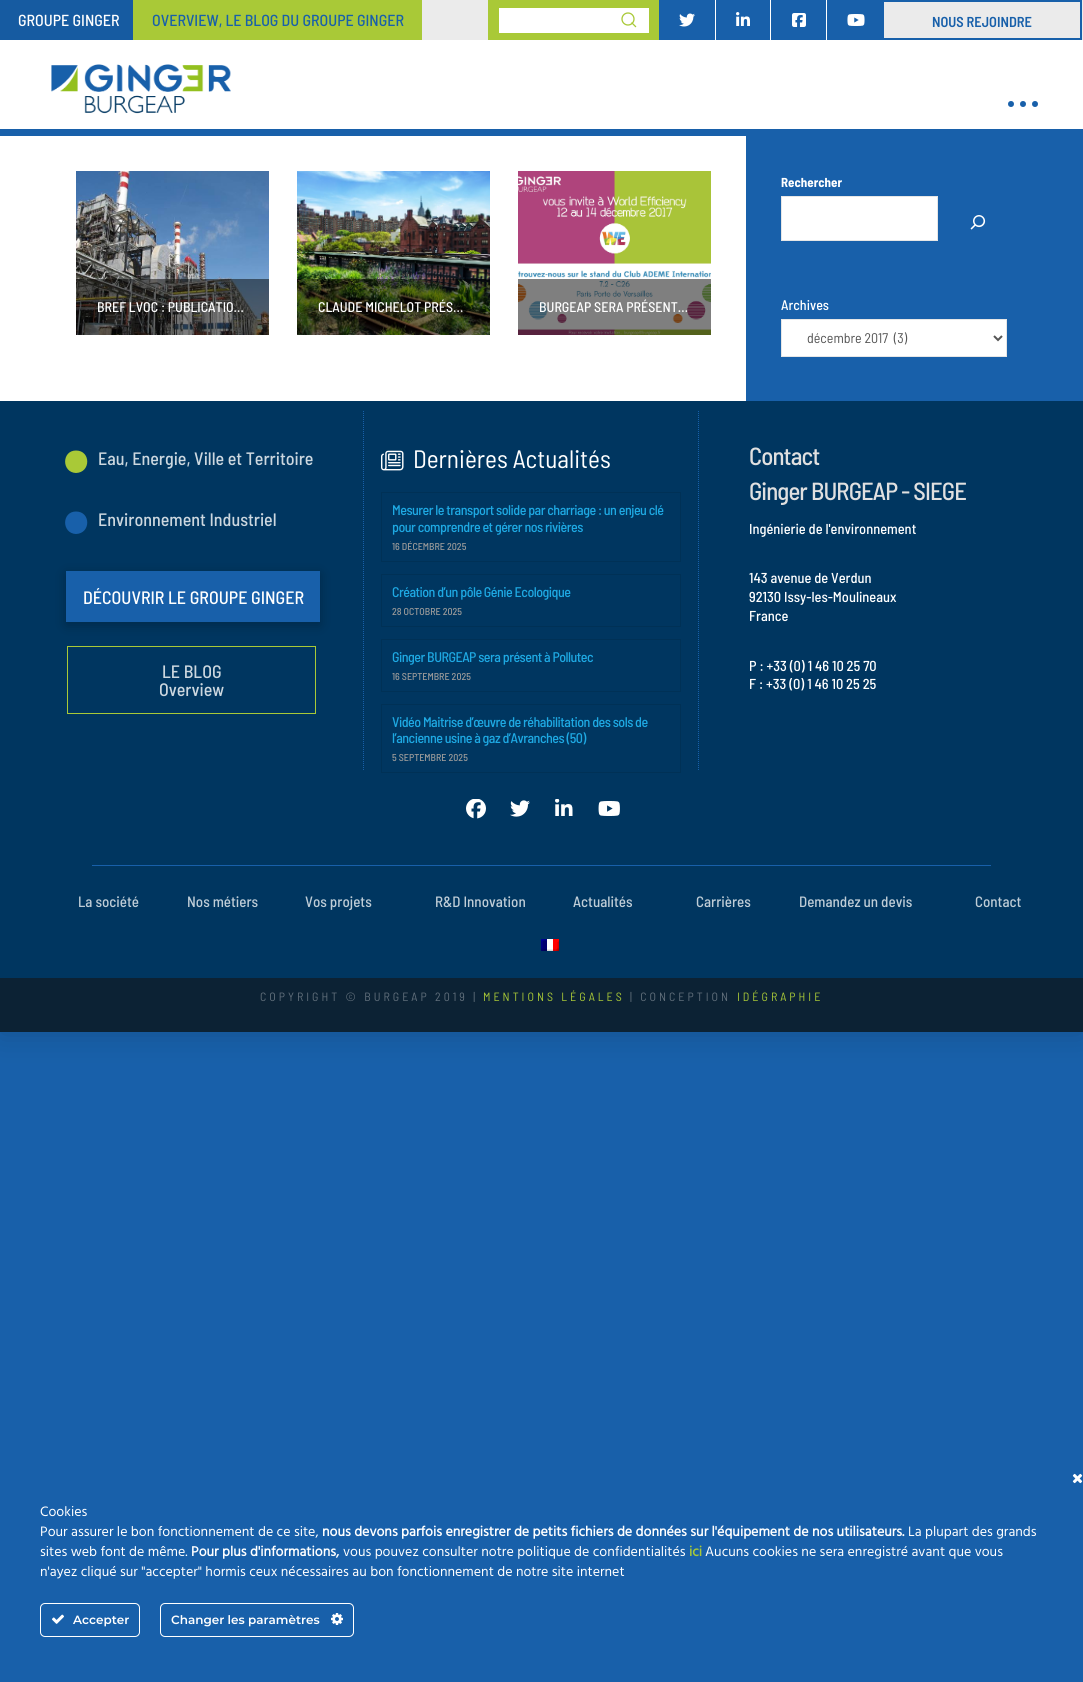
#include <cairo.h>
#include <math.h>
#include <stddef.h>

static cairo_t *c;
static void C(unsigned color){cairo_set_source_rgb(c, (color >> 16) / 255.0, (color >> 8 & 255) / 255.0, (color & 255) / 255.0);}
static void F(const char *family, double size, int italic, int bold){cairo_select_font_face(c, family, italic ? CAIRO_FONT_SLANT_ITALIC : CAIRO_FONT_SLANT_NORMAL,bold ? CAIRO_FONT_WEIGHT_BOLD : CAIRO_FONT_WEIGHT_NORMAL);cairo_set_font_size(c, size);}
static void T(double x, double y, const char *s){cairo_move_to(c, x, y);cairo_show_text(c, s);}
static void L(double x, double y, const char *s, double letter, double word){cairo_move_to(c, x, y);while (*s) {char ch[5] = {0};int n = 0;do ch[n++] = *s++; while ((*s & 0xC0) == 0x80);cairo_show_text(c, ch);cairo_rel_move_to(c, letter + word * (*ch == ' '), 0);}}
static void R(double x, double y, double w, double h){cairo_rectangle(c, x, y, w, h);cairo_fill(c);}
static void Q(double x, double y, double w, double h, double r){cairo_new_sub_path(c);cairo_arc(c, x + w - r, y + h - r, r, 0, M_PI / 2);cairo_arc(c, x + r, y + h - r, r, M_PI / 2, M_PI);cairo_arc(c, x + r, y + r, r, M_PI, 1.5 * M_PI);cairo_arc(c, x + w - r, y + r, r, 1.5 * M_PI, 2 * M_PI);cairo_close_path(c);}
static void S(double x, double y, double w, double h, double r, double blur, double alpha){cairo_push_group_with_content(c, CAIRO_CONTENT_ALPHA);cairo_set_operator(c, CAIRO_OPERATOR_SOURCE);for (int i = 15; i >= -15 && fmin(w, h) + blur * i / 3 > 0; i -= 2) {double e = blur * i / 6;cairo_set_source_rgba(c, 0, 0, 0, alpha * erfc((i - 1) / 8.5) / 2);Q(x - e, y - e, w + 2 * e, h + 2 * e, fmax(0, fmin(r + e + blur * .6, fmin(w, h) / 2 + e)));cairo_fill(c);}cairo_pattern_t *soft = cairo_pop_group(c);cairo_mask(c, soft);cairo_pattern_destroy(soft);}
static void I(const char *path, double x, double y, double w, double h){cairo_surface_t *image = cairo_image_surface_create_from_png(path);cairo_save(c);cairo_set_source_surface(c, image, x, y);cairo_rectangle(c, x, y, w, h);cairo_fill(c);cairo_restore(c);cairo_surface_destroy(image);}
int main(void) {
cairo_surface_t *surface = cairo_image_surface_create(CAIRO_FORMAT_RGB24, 1083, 1682);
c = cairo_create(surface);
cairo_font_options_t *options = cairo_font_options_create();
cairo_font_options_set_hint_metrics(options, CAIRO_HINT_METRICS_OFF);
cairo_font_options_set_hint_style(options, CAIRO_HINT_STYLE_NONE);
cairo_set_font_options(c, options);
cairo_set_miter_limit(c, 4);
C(0x1860aa);
cairo_paint(c);
C(0xebebeb);
R(422,0,661,40);
C(0x165ba1);
R(0,0,133,40);
F("Barlow Semi Condensed Medium",16,0,0);
C(0xffffff);
T(18,26,"GROUPE GINGER");
C(0xa9c937);
R(133,0,289,40);
C(0x1860aa);
T(152,26,"OVERVIEW, LE BLOG DU GROUPE GINGER");
C(0xa9c937);
R(488,0,171,40);
C(0xffffff);
R(499,8,150,25);
cairo_new_path(c);
cairo_arc(c,628,19,6,0,2 * M_PI);
C(0xa9c937);
cairo_set_line_width(c,1.3);
cairo_stroke(c);
cairo_new_path(c);
cairo_move_to(c,635.5,26.5);
cairo_line_to(c,632,23);
cairo_set_line_cap(c,CAIRO_LINE_CAP_SQUARE);
cairo_stroke(c);
C(0x1860aa);
R(659,0,56,40);
I("1.png",679,13,16,14);
R(716,0,54,40);
cairo_rectangle(c,715.5,-.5,55,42);
C(0xffffff);
cairo_set_line_width(c,1);
cairo_set_line_cap(c,CAIRO_LINE_CAP_BUTT);
cairo_stroke(c);
I("2.png",736,12,14,14);
C(0x1860aa);
R(771,0,55,40);
C(0xffffff);
R(826,0,1,42);
I("3.png",792,13,14,14);
C(0x1860aa);
R(827,0,55,40);
I("4.png",847,14,18,12);
cairo_rectangle(c,883,1,198,38);
cairo_set_line_width(c,2);
cairo_stroke(c);
F("Barlow Semi Condensed SemiBold",14.4,0,0);
T(932,27,"NOUS REJOINDRE");
C(0xffffff);
R(0,40,1083,89);
I("5.png",51,64,180,50);
C(0x1860aa);
cairo_arc(c,1011,104,3,0,2 * M_PI);
cairo_fill(c);
cairo_arc(c,1023,104,3,0,2 * M_PI);
cairo_fill(c);
cairo_arc(c,1035,104,3,0,2 * M_PI);
cairo_fill(c);
C(0xffffff);
R(0,136,746,265);
I("6.png",76,171,193,164);
cairo_set_source_rgba(c,0,0,0,0.5);
R(76,279,193,56);
F("Barlow Semi Condensed Medium",14,0,0);
C(0xffffff);
T(97,312,"BREF LVOC : PUBLICATIO…");
I("7.png",297,171,193,164);
cairo_set_source_rgba(c,0,0,0,0.5);
R(297,279,193,56);
C(0xffffff);
T(318,312,"CLAUDE MICHELOT PRÉS…");
I("8.png",518,171,193,164);
cairo_set_source_rgba(c,0,0,0,0.5);
R(518,279,193,56);
C(0xffffff);
T(539,312,"BURGEAP SERA PRÉSENT…");
F("Barlow Semi Condensed",13,0,1);
T(781,187,"Rechercher");
cairo_rectangle(c,781.5,196.5,156,44);
cairo_fill_preserve(c);
C(0xe6e6e6);
cairo_set_line_width(c,1);
cairo_stroke(c);
I("9.png",970,215,16,15);
F("Barlow Semi Condensed Medium",14,0,0);
C(0xffffff);
T(781,310,"Archives");
cairo_rectangle(c,781.5,319.5,225,37);
cairo_fill_preserve(c);
C(0xe6e6e6);
cairo_stroke(c);
cairo_new_path(c);
cairo_move_to(c,994,336);
cairo_line_to(c,998,340);
cairo_line_to(c,1002,336);
C(0x555555);
cairo_set_line_width(c,2);
cairo_stroke(c);
F("Barlow Semi Condensed",14,0,0);
T(807,343,"décembre 2017  (3)");
C(0x000000);
S(0,847,1083,187,0,16,.15);
C(0x003660);
R(0,401,1083,444);
C(0xa9c937);
cairo_new_path(c);
cairo_move_to(c,76,473);
cairo_curve_to(c,91,472.5,91,450.5,76,450.5);
cairo_curve_to(c,61.5,450.5,61.5,472.5,76,473);
cairo_close_path(c);
cairo_fill(c);
F("Barlow Semi Condensed Medium",18,0,0);
C(0xccd7df);
T(98,465,"Eau, Energie, Ville et Territoire");
C(0x1860aa);
cairo_new_path(c);
cairo_move_to(c,76,534);
cairo_curve_to(c,91,533.5,91,511.5,76,511.5);
cairo_curve_to(c,61.5,511.5,61.5,533.5,76,534);
cairo_close_path(c);
cairo_fill(c);
C(0xccd7df);
T(98,526,"Environnement Industriel");
C(0x000000);
S(66,574,254,51,0,6,.25);
C(0x1860aa);
R(66,571,254,51);
C(0xffffff);
T(83,604,"DÉCOUVRIR LE GROUPE GINGER");
cairo_rectangle(c,67.5,646.5,248,67);
C(0xa9c937);
cairo_set_line_width(c,1);
cairo_stroke(c);
C(0xccd7df);
T(162,678,"LE BLOG");
T(159,696,"Overview");
cairo_new_path(c);
cairo_move_to(c,363.5,411);
cairo_line_to(c,363.5,771);
C(0x1860aa);
cairo_set_dash(c,(double[]){1,1},2,0);
cairo_stroke(c);
I("10.png",381,450,23,21);
F("Barlow Semi Condensed",25.25,0,0);
C(0xffffff);
T(413,468,"Dernières Actualités");
cairo_rectangle(c,381.5,492.5,299,69);
C(0x003156);
cairo_set_dash(c,NULL,0,0);
cairo_stroke(c);
F("Barlow Semi Condensed Medium",14,0,0);
C(0x1ea9e3);
L(392,515,"Mesurer le transport solide par charriage : un enjeu clé",-.5,0);
L(392,532,"pour comprendre et gérer nos rivières",-.5,0);
F("Barlow Semi Condensed Medium",10,0,0);
C(0x999999);
T(392,550,"16 DÉCEMBRE 2025");
cairo_rectangle(c,381.5,574.5,299,52);
C(0x003156);
cairo_stroke(c);
F("Barlow Semi Condensed Medium",14,0,0);
C(0x1ea9e3);
L(392,597,"Création d’un pôle Génie Ecologique",-.5,0);
F("Barlow Semi Condensed Medium",10,0,0);
C(0x999999);
T(392,615,"28 OCTOBRE 2025");
cairo_rectangle(c,381.5,639.5,299,52);
C(0x003156);
cairo_stroke(c);
F("Barlow Semi Condensed Medium",14,0,0);
C(0x1ea9e3);
L(392,662,"Ginger BURGEAP sera présent à Pollutec",-.5,0);
F("Barlow Semi Condensed Medium",10,0,0);
C(0x999999);
T(392,680,"16 SEPTEMBRE 2025");
cairo_rectangle(c,381.5,704.5,299,68);
C(0x003156);
cairo_stroke(c);
F("Barlow Semi Condensed Medium",14,0,0);
C(0x1ea9e3);
L(392,727,"Vidéo Maitrise d’œuvre de réhabilitation des sols de",-.5,0);
L(392,743,"l’ancienne usine à gaz d’Avranches (50)",-.5,0);
F("Barlow Semi Condensed Medium",10,0,0);
C(0x999999);
T(392,761,"5 SEPTEMBRE 2025");
cairo_new_path(c);
cairo_move_to(c,698.5,411);
cairo_line_to(c,698.5,771);
C(0x1860aa);
cairo_set_dash(c,(double[]){1,1},2,0);
cairo_stroke(c);
F("Barlow Semi Condensed Medium",24.75,0,0);
C(0xe0e0e0);
L(749,465,"Contact",-.9,0);
L(749,500,"Ginger BURGEAP - SIEGE",-.9,0);
F("Barlow Semi Condensed Medium",14.4,0,0);
C(0xffffff);
T(749,534,"Ingénierie de l'environnement");
T(749,583,"143 avenue de Verdun");
T(749,602,"92130 Issy-les-Moulineaux");
T(749,621,"France");
T(749,671,"P : +33 (0) 1 46 10 25 70");
T(749,689,"F : +33 (0) 1 46 10 25 25");
I("11.png",466,799,20,20);
I("12.png",510,800,20,17);
I("13.png",555,799,18,17);
I("14.png",598,801,22,15);
C(0x003660);
R(0,845,1083,133);
C(0x1860aa);
R(92,865,899,1);
F("Barlow Semi Condensed Medium",15,0,0);
C(0xbfcdd7);
T(78,907,"La société");
T(187,907,"Nos métiers");
T(305,907,"Vos projets");
T(435,907,"R&D Innovation");
T(573,907,"Actualités");
T(696,907,"Carrières");
T(799,907,"Demandez un devis");
T(975,907,"Contact");
I("15.png",541,939,18,12);
C(0x0c2234);
R(0,978,1083,54);
F("Barlow Semi Condensed",12,0,0);
C(0x616f7b);
L(260,1001,"COPYRIGHT © BURGEAP 2019 |",3,0);
C(0xa9c937);
L(483,1001,"MENTIONS LÉGALES",3,0);
C(0x616f7b);
L(630,1001,"| CONCEPTION",3,0);
C(0xa9c937);
L(737,1001,"IDÉGRAPHIE",3,0);
F("Hind",14,0,0);
C(0xffffff);
T(40,1516,"Cookies");
T(40,1536,"Pour assurer le bon fonctionnement de ce site,");
F("Hind",14,0,1);
T(322,1536,"nous devons parfois enregistrer de petits fichiers de données sur l'équipement de nos utilisateurs.");
F("Hind",14,0,0);
T(908,1536,"La plupart des grands");
T(40,1556,"sites web font de même.");
F("Hind",14,0,1);
T(191,1556,"Pour plus d'informations,");
F("Hind",14,0,0);
T(343,1556,"vous pouvez consulter notre politique de confidentialités");
F("Hind",14,0,1);
C(0xa9c937);
T(689,1556,"ici");
F("Hind",14,0,0);
C(0xffffff);
T(705,1556,"Aucuns cookies ne sera enregistré avant que vous");
T(40,1576,"n'ayez cliqué sur \"accepter\" hormis ceux nécessaires au bon fonctionnement de notre site internet");
I("16.png",1072,1473,11,11);
Q(40.5,1603.5,99,33,4.5);
cairo_set_dash(c,NULL,0,0);
cairo_stroke(c);
I("17.png",52,1614,12,10);
F("Montserrat SemiBold",12,0,0);
T(73,1624,"Accepter");
Q(160.5,1603.5,193,33,4.5);
cairo_stroke(c);
T(171,1624,"Changer les paramètres");
I("18.png",331,1613,12,12);
cairo_surface_write_to_png(surface, "o.png");
cairo_font_options_destroy(options);
cairo_destroy(c);
cairo_surface_destroy(surface);
return 0;
}
